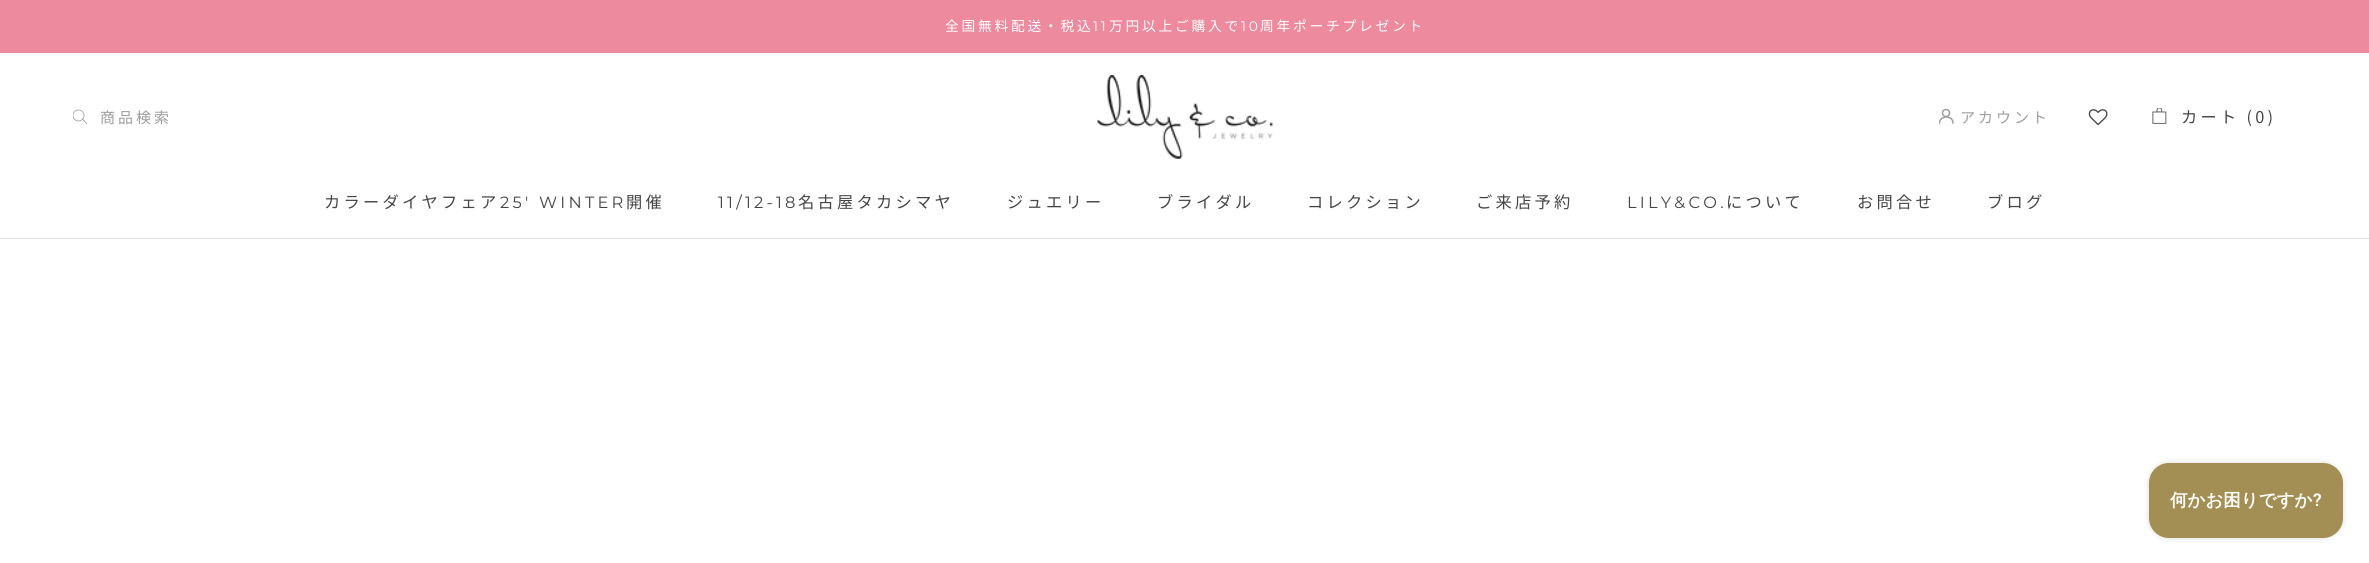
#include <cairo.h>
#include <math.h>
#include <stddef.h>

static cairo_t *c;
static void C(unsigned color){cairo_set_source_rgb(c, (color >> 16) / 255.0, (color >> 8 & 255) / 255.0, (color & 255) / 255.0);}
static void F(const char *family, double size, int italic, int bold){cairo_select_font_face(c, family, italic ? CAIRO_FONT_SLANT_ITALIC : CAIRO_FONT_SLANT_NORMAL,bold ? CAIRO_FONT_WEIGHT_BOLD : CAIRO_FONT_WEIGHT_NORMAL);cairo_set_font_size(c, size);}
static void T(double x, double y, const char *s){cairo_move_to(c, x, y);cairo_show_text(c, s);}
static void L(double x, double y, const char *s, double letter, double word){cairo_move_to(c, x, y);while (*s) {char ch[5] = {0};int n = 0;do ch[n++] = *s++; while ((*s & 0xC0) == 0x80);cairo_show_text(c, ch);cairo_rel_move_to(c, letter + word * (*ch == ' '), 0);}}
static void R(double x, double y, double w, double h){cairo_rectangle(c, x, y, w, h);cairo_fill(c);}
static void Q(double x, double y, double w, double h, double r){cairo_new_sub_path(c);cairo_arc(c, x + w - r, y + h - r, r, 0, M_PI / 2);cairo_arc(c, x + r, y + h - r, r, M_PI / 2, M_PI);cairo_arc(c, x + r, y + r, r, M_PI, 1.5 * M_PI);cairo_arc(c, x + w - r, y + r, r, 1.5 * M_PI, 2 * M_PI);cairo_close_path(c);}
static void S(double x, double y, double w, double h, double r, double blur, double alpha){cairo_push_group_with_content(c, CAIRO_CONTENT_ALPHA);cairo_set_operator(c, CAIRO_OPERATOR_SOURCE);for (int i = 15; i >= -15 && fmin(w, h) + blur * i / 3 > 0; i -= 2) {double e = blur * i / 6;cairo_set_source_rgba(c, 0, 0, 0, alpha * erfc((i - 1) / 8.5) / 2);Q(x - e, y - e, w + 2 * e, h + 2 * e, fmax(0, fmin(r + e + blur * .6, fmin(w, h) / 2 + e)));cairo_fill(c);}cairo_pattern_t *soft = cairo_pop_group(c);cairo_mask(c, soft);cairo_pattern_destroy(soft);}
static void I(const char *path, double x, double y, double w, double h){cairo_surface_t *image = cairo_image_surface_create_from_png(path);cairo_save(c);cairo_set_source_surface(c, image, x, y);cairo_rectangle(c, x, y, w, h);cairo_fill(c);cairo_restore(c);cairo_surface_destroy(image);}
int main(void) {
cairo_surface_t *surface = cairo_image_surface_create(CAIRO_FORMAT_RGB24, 2369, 563);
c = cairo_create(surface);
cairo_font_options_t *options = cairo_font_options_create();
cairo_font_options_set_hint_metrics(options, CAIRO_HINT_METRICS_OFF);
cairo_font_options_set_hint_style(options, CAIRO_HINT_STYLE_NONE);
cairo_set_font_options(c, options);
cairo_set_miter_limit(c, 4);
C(0xffffff);
cairo_paint(c);
C(0xed8a9e);
R(0,0,2369,53);
F("Noto Sans JP Thin",13.75,0,0);
C(0xffffff);
L(945,31,"全国無料配送・税込",2.75,0);
F("Montserrat Thin",13.75,0,0);
L(1093,31,"11",2.75,0);
F("Noto Sans JP Thin",13.75,0,0);
L(1109,31,"万円以上ご購入で",2.75,0);
F("Montserrat Thin",13.75,0,0);
L(1241,31,"10",2.75,0);
F("Noto Sans JP Thin",13.75,0,0);
L(1260,31,"周年ポーチプレゼント",2.75,0);
C(0xe3e3e3);
R(0,238,2369,1);
I("1.png",1097,75,176,84);
cairo_save(c);
cairo_rectangle(c,1939,109,15,15);
cairo_clip(c);
cairo_new_path(c);
cairo_move_to(c,1939.5,123);
cairo_curve_to(c,1939.5,115,1953,115,1953,123);
C(0x9d9d9d);
cairo_set_line_width(c,1.5);
cairo_set_line_cap(c,CAIRO_LINE_CAP_SQUARE);
cairo_stroke(c);
cairo_restore(c);
cairo_arc(c,1946,113,3.5,0,2 * M_PI);
C(0x9d9d9d);
cairo_set_line_width(c,1.5);
cairo_stroke(c);
F("Noto Sans JP Thin",15,0,0);
L(1960,123,"アカウント",3,0);
I("2.png",2088,109,20,17);
I("3.png",2152,108,15,16);
F("Noto Sans JP Thin",16.25,0,0);
C(0x454545);
L(2181,123,"カート (0)",3.25,0);
cairo_new_path(c);
cairo_move_to(c,86.5,123.5);
cairo_line_to(c,82.5,119);
C(0x9d9d9d);
cairo_set_line_width(c,.8);
cairo_set_line_cap(c,CAIRO_LINE_CAP_SQUARE);
cairo_stroke(c);
cairo_save(c);
cairo_rectangle(c,73,109,15,15);
cairo_clip(c);
cairo_arc(c,78.5,115.5,5.5,0,2 * M_PI);
cairo_set_line_cap(c,CAIRO_LINE_CAP_BUTT);
cairo_stroke(c);
cairo_restore(c);
F("Noto Sans JP Thin",15,0,0);
L(100,123,"商品検索",3,0);
F("Noto Sans JP Thin",16.25,0,0);
C(0x454545);
L(324,208,"カラーダイヤフェア",3.25,0);
F("Montserrat Thin",16.25,0,0);
L(500,208,"25' WINTER",3.25,0);
F("Noto Sans JP Thin",16.25,0,0);
L(626,208,"開催",3.25,0);
F("Montserrat Thin",16.25,0,0);
L(718,208,"11/12-18",3.25,0);
F("Noto Sans JP Thin",16.25,0,0);
L(798,208,"名古屋タカシマヤ",3.25,0);
L(1007,208,"ジュエリー",3.25,0);
L(1157,208,"ブライダル",3.25,0);
L(1307,208,"コレクション",3.25,0);
L(1476,208,"ご来店予約",3.25,0);
F("Montserrat Thin",16.25,0,0);
L(1627,208,"LILY&CO.",3.25,0);
F("Noto Sans JP Thin",16.25,0,0);
L(1726,208,"について",3.25,0);
L(1857,208,"お問合せ",3.25,0);
L(1987,208,"ブログ",3.25,0);
C(0x000000);
S(2149,463,194,75,20,3,.15);
C(0xa38f54);
Q(2149,463,194,75,20);
cairo_fill(c);
F("WenQuanYi Zen Hei",17.5,0,1);
C(0xffffff);
T(2170,506,"何かお困りですか");
F("Roboto SemiBold",17.5,0,0);
T(2313,506,"?");
cairo_surface_write_to_png(surface, "o.png");
cairo_font_options_destroy(options);
cairo_destroy(c);
cairo_surface_destroy(surface);
return 0;
}
